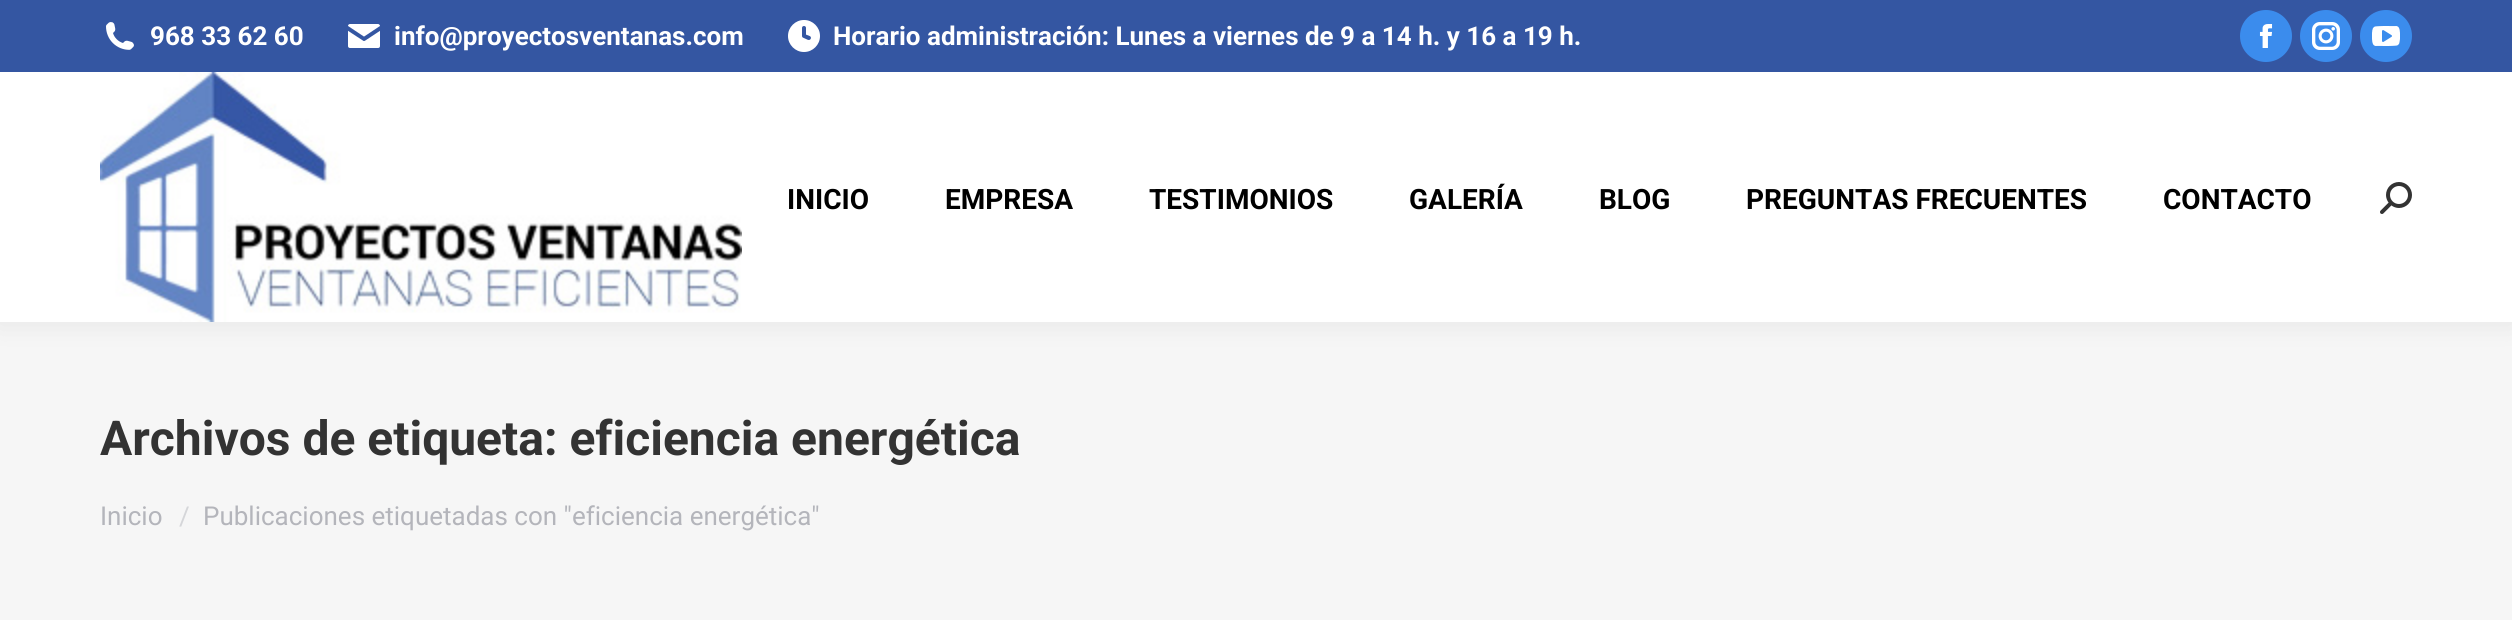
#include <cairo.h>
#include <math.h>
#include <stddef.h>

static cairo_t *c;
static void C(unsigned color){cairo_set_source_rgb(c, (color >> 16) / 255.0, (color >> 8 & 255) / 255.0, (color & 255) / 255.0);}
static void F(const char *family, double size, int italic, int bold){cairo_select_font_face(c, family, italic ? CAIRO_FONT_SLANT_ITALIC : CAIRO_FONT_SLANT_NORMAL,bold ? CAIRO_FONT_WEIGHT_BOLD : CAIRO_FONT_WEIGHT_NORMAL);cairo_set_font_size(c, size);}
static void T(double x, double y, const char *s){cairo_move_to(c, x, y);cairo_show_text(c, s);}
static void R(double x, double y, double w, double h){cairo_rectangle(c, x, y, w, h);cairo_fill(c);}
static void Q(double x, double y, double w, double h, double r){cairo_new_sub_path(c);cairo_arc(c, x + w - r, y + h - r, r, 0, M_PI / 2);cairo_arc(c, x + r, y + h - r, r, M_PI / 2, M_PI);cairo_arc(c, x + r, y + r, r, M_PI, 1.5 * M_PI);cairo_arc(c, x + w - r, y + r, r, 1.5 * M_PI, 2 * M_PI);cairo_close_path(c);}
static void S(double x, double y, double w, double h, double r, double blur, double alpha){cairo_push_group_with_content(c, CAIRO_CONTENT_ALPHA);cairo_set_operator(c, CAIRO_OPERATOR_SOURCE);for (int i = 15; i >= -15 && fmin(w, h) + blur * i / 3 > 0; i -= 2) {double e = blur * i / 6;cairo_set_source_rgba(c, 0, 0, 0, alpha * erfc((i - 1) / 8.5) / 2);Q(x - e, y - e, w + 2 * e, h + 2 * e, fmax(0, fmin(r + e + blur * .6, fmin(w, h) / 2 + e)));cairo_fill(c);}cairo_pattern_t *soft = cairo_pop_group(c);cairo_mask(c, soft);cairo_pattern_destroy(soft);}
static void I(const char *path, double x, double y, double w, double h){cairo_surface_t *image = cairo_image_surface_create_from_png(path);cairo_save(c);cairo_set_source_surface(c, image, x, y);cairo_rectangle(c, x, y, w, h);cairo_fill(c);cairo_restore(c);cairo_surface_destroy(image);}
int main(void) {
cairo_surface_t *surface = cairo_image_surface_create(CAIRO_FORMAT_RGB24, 2512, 620);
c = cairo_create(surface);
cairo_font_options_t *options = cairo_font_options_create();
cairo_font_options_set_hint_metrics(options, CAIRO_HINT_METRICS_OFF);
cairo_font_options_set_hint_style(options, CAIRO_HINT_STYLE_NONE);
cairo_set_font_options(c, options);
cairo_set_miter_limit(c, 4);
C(0xf6f6f6);
cairo_paint(c);
C(0x000000);
S(-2,-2,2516,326,0,15,.07);
C(0xffffff);
R(0,72,2512,250);
C(0x3456a2);
R(0,0,2512,72);
I("1.png",106,22,28,28);
F("Roboto",26,0,1);
C(0xffffff);
T(150,45,"968 33 62 60");
I("2.png",348,24,32,24);
T(394,45,"info@proyectosventanas.com");
I("3.png",788,20,32,32);
T(833,45,"Horario administración: Lunes a viernes de 9 a 14 h. y 16 a 19 h.");
C(0x3b8ced);
cairo_new_path(c);
cairo_arc(c,2266,36,26,0,2 * M_PI);
cairo_fill(c);
I("4.png",2259,24,14,24);
cairo_arc(c,2326,36,26,0,2 * M_PI);
cairo_fill(c);
I("5.png",2312,22,28,28);
cairo_arc(c,2386,36,26,0,2 * M_PI);
cairo_fill(c);
I("6.png",2372,26,28,20);
I("7.png",100,72,642,250);
F("Roboto",28,0,1);
C(0x000000);
T(787,209,"INICIO");
T(945,209,"EMPRESA");
T(1149,209,"TESTIMONIOS");
T(1409,209,"GALERÍA");
T(1599,209,"BLOG");
T(1746,209,"PREGUNTAS FRECUENTES");
T(2163,209,"CONTACTO");
I("8.png",2380,182,32,32);
F("Roboto",48,0,1);
C(0x333333);
T(100,455,"Archivos de etiqueta: eficiencia energética");
F("Roboto",26,0,0);
C(0xb4b5bb);
T(100,525,"Inicio");
C(0xd5d6d9);
T(179,525,"/");
C(0xb4b5bb);
T(203,525,"Publicaciones etiquetadas con \"eficiencia energética\"");
cairo_surface_write_to_png(surface, "o.png");
cairo_font_options_destroy(options);
cairo_destroy(c);
cairo_surface_destroy(surface);
return 0;
}
